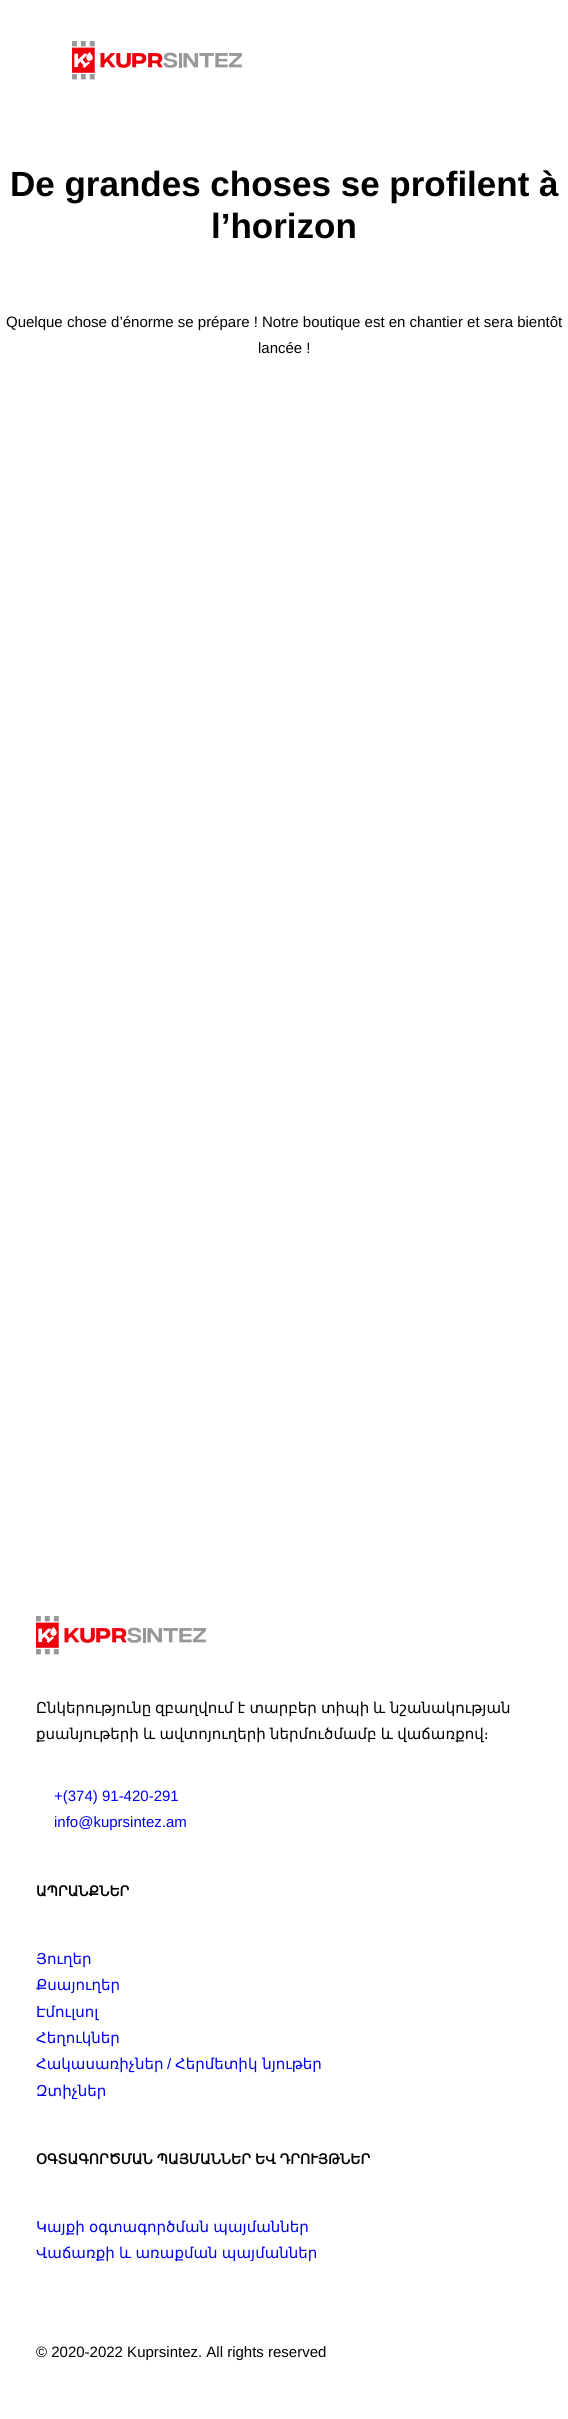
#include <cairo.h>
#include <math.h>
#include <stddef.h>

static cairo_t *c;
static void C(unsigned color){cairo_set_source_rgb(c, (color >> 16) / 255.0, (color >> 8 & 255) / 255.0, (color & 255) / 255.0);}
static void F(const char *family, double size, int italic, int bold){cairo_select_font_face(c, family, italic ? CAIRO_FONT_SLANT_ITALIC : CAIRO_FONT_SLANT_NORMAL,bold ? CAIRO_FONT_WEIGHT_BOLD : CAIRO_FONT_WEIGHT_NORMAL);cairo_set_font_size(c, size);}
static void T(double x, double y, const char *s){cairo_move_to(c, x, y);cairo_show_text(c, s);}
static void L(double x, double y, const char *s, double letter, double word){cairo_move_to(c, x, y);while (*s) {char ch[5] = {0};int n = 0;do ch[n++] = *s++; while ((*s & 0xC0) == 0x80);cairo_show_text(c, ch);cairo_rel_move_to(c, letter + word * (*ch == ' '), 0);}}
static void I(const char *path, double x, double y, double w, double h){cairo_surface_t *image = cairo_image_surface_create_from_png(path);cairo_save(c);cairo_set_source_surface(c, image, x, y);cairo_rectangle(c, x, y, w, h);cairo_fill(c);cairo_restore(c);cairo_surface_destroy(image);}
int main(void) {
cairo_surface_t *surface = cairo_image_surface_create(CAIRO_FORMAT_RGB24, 568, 2419);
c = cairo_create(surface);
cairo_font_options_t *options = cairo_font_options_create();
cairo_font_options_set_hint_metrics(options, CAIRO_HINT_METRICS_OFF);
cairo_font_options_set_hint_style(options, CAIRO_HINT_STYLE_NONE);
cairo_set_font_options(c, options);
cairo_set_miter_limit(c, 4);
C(0xffffff);
cairo_paint(c);
I("1.png",72,41,170,39);
F("Liberation Sans",35,0,1);
C(0x000000);
T(10,196,"De grandes choses se profilent à");
T(211,238,"l’horizon");
F("Liberation Sans",15,0,0);
T(6,327,"Quelque chose d’énorme se prépare ! Notre boutique est en chantier et sera bientôt");
T(258,353,"lancée !");
I("1.png",36,1616,170,39);
F("DejaVu Sans",15,0,0);
T(36,1713,"Ընկերությունը");
L(155,1713,"զբաղվում է տարբեր տիպի",0,-.5);
T(373,1713,"և");
T(390,1713,"նշանակության");
T(36,1739,"քսանյութերի");
L(143,1739,"և ավտոյուղերի",0,-.5);
L(270,1739,"ներմուծմամբ և վաճառքով։",0,-.5);
F("Liberation Sans",15,0,0);
C(0x0000ee);
T(54,1801,"+(374) 91-420-291");
T(54,1827,"info@kuprsintez.am");
F("DejaVu Sans",14,0,1);
C(0x000000);
T(36,1896,"ԱՊՐԱՆՔՆԵՐ");
F("DejaVu Sans",15,0,0);
C(0x0000ee);
T(36,1964,"Յուղեր");
T(36,1990,"Քսայուղեր");
T(36,2017,"Էմուլսոլ");
T(36,2043,"Հեղուկներ");
T(36,2069,"Հակասառիչներ");
F("Liberation Sans",15,0,0);
T(167,2069,"/");
F("DejaVu Sans",15,0,0);
T(175,2069,"Հերմետիկ նյութեր");
T(36,2096,"Զտիչներ");
F("DejaVu Sans",14,0,1);
C(0x000000);
L(36,2164,"ՕԳՏԱԳՈՐԾՄԱՆ ՊԱՅՄԱՆՆԵՐ ԵՎ ԴՐՈՒՅԹՆԵՐ",0,-.5);
F("DejaVu Sans",15,0,0);
C(0x0000ee);
L(36,2232,"Կայքի օգտագործման պայմաններ",0,-.5);
L(36,2258,"Վաճառքի և առաքման պայմաններ",0,-.5);
F("Liberation Sans",15,0,0);
C(0x000000);
T(36,2357,"© 2020-2022 Kuprsintez. All rights reserved");
cairo_surface_write_to_png(surface, "o.png");
cairo_font_options_destroy(options);
cairo_destroy(c);
cairo_surface_destroy(surface);
return 0;
}
